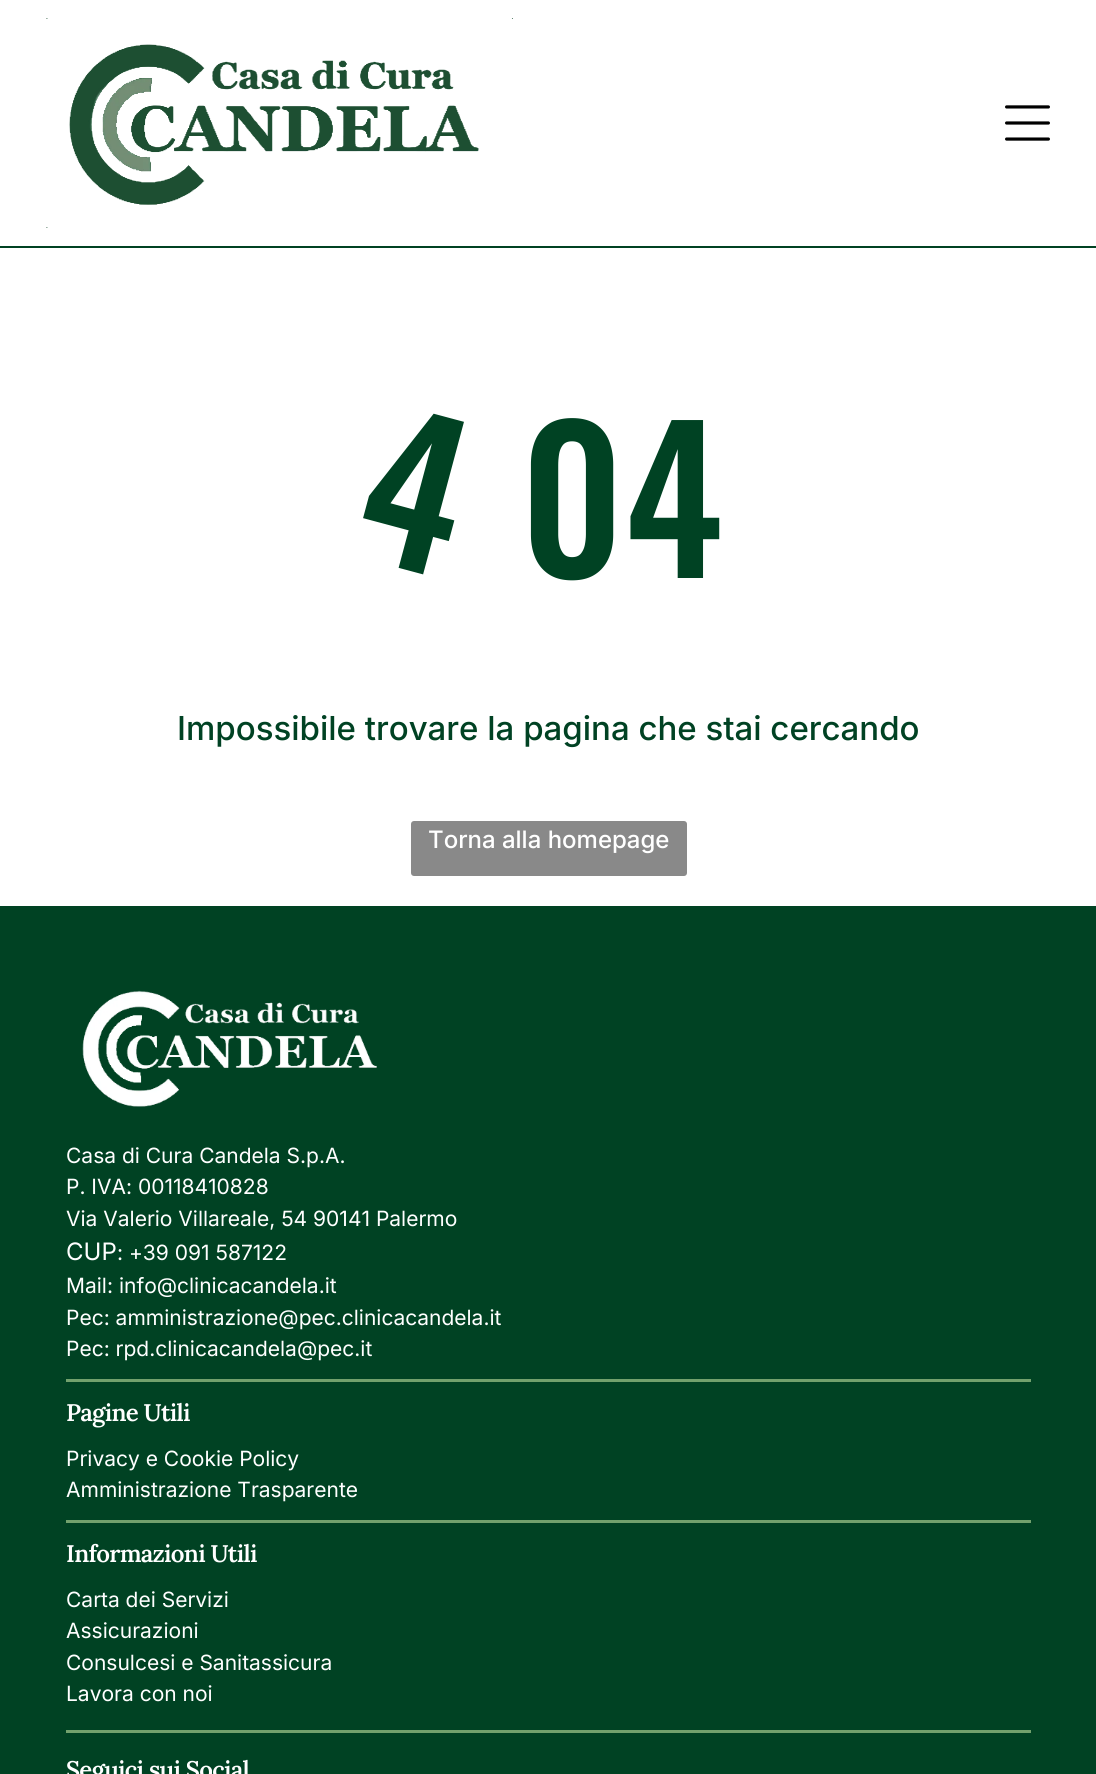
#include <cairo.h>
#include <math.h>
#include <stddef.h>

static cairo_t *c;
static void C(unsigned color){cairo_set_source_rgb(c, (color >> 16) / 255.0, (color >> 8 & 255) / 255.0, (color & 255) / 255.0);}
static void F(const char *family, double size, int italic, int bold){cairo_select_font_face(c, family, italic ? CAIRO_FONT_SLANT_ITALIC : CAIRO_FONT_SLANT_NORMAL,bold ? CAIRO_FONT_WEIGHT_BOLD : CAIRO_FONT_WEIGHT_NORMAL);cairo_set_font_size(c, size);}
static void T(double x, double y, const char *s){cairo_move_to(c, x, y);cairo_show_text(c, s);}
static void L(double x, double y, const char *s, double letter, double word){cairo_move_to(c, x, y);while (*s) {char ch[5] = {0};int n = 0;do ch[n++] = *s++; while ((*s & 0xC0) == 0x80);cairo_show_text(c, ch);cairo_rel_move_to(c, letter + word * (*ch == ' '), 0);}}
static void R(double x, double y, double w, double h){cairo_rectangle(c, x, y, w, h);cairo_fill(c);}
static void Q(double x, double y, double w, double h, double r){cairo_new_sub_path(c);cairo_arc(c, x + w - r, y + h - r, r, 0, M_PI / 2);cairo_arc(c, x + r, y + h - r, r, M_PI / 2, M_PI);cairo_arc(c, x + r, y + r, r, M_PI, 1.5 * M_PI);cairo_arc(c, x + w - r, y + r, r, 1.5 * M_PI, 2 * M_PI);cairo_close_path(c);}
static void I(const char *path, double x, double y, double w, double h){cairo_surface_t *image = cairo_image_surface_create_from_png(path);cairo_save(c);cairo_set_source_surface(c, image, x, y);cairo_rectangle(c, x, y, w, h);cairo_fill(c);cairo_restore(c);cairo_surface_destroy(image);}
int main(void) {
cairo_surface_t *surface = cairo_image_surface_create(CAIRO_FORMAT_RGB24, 1096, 1774);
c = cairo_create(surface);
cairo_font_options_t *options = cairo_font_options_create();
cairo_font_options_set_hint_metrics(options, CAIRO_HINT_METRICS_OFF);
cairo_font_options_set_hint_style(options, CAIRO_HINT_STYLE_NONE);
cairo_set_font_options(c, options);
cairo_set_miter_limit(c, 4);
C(0xffffff);
cairo_paint(c);
C(0x004223);
R(0,246,1096,2);
I("1.png",46,18,467,210);
I("2.png",1005,105,45,36);
F("Oswald Medium",195,0,0);
cairo_save(c);
cairo_translate(c,347,554);
cairo_rotate(c,15 * M_PI / 180);
T(0,0,"4");
cairo_restore(c);
T(520,578,"04");
F("Inter Medium",33,0,0);
T(177,740,"Impossibile trovare la pagina che stai cercando");
C(0x898989);
Q(411,821,276,55,3);
cairo_fill(c);
F("Inter Medium",24,0,0);
C(0xffffff);
T(428,848,"Torna alla homepage");
C(0x004223);
R(0,906,1096,868);
I("3.png",82,990,295,117);
F("Inter",21,0,0);
C(0xffffff);
T(66,1163,"Casa di Cura Candela S.p.A.");
T(66,1194,"P. IVA: 00118410828");
T(66,1226,"Via Valerio Villareale, 54 90141 Palermo");
F("Inter",24,0,0);
T(66,1260,"CUP");
F("Inter",21,0,0);
T(117,1260,": +39 091 587122");
T(66,1293,"Mail: info@clinicacandela.it");
T(66,1325,"Pec: amministrazione@pec.clinicacandela.it");
T(66,1356,"Pec: rpd.clinicacandela@pec.it");
C(0x72a16d);
R(66,1379,965,3);
F("Lora SemiBold",24,0,0);
C(0xffffff);
L(66,1421,"Pagine Utili",-.75,0);
F("Inter",21,0,0);
T(66,1466,"Privacy e Cookie Policy");
T(66,1497,"Amministrazione Trasparente");
C(0x72a16d);
R(66,1520,965,3);
F("Lora SemiBold",24,0,0);
C(0xffffff);
L(66,1562,"Informazioni Utili",-.75,0);
F("Inter",21,0,0);
T(66,1607,"Carta dei Servizi");
T(66,1638,"Assicurazioni");
T(66,1670,"Consulcesi e Sanitassicura");
T(66,1701,"Lavora con noi");
C(0x72a16d);
R(66,1730,965,3);
F("Lora SemiBold",24,0,0);
C(0xffffff);
L(66,1778,"Seguici sui Social",-.75,0);
cairo_surface_write_to_png(surface, "o.png");
cairo_font_options_destroy(options);
cairo_destroy(c);
cairo_surface_destroy(surface);
return 0;
}
